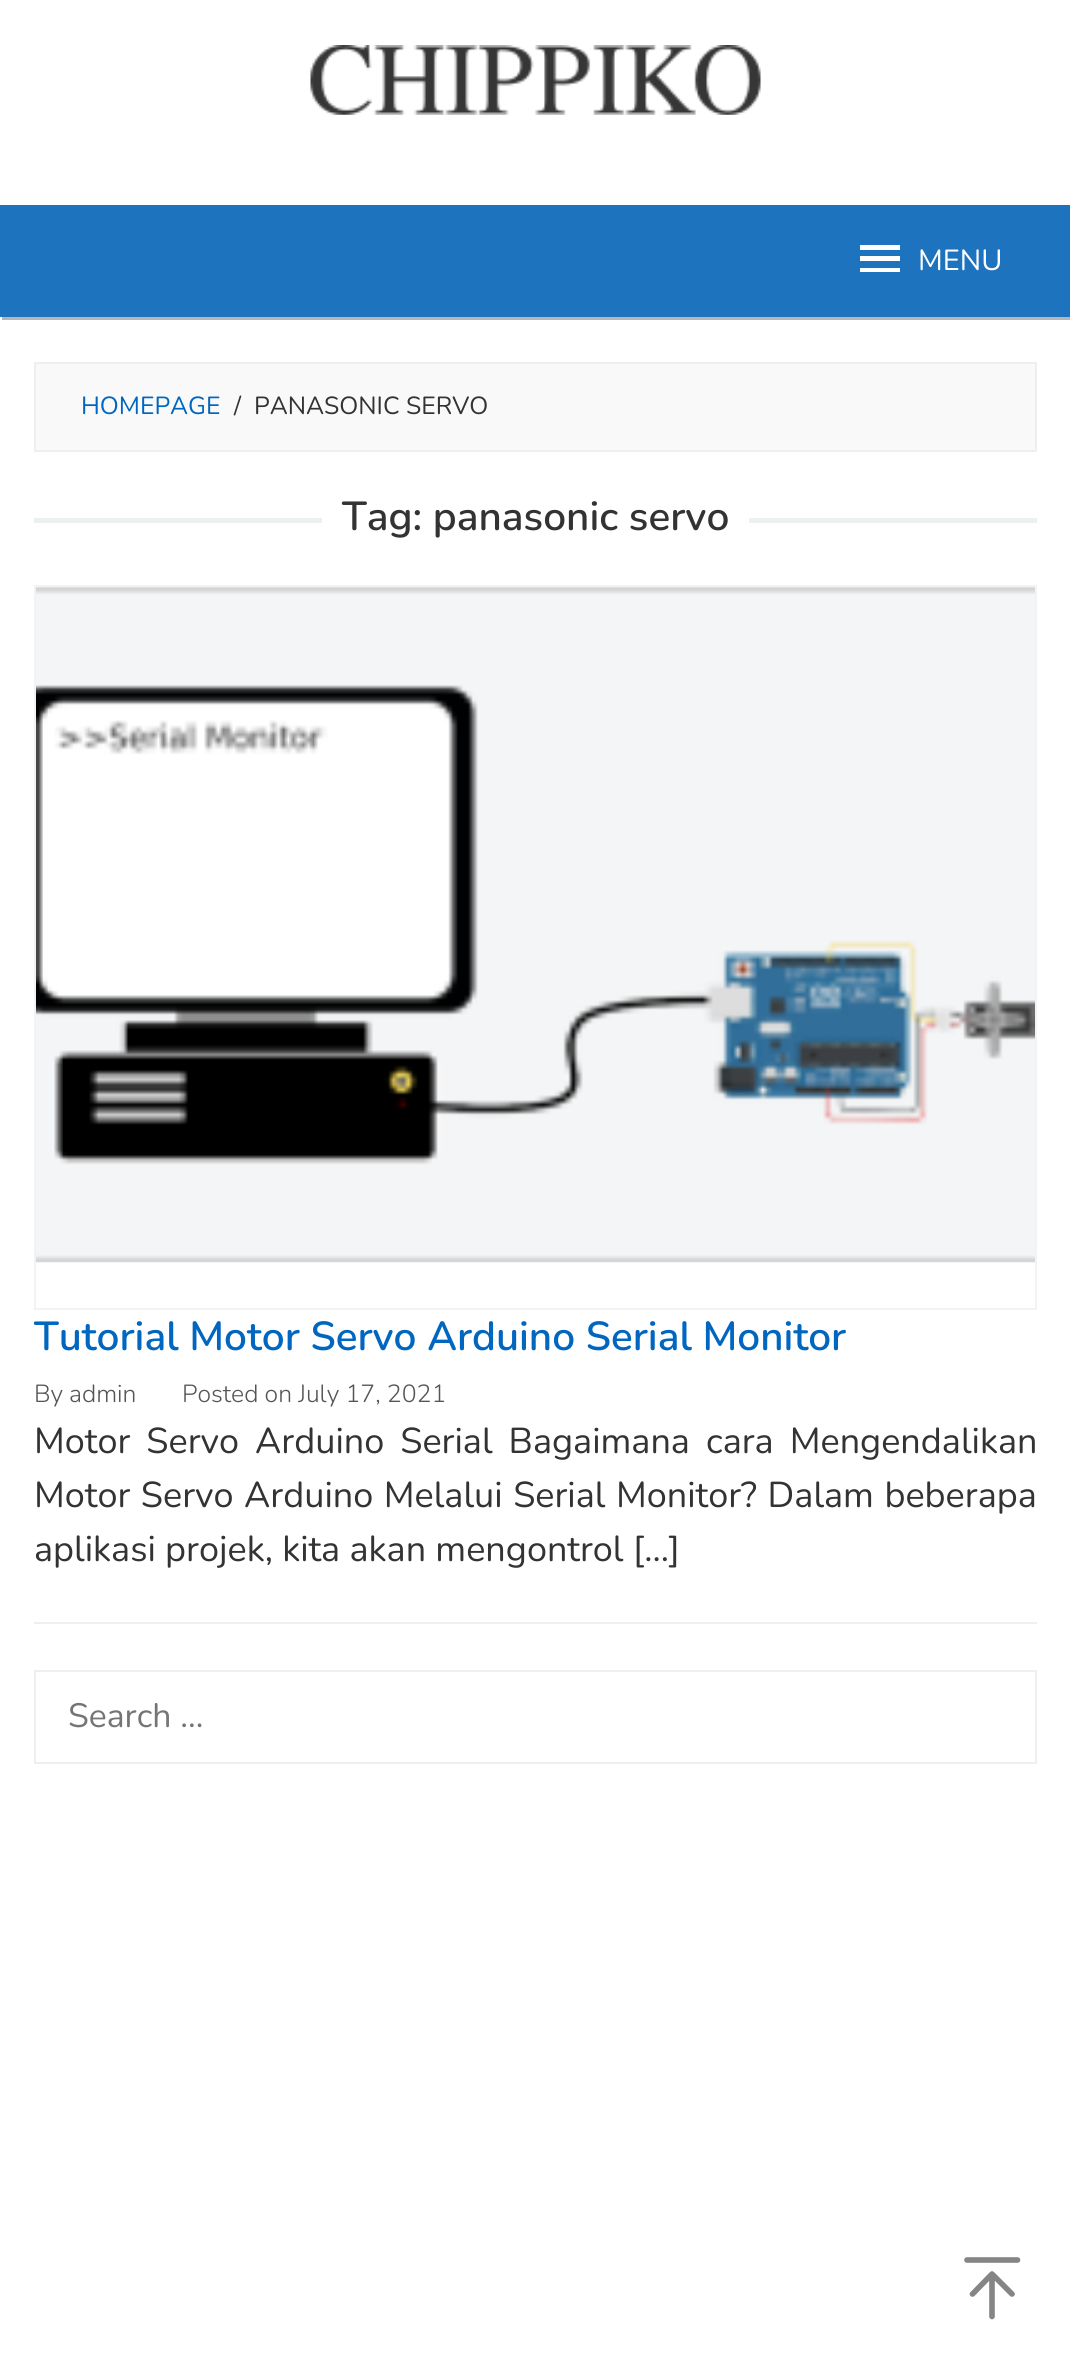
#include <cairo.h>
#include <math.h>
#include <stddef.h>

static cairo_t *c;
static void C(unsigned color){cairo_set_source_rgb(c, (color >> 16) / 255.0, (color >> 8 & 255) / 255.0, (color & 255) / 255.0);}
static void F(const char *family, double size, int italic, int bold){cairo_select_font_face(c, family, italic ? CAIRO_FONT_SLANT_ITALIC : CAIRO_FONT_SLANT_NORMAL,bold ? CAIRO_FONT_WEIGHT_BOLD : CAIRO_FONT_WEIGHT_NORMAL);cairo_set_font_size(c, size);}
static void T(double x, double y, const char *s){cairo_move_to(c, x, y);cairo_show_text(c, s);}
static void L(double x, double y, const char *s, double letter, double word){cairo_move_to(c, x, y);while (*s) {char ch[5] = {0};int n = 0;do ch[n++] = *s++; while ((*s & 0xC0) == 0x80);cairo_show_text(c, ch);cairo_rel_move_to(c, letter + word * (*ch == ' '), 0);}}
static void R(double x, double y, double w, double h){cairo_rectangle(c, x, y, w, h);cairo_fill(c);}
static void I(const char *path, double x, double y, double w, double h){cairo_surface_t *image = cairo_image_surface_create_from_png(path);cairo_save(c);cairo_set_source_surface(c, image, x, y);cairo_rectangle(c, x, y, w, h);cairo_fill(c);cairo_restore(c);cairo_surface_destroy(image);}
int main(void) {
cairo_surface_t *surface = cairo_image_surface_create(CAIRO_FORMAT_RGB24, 1070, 2378);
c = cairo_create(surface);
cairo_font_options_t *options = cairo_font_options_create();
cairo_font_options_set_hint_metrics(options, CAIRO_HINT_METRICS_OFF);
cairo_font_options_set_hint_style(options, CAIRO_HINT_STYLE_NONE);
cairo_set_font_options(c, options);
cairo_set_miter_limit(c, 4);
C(0xffffff);
cairo_paint(c);
I("1.png",310,45,451,70);
C(0xb5b5b5);
cairo_new_path(c);
cairo_move_to(c,2,317);
cairo_line_to(c,2,320);
cairo_line_to(c,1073,320);
cairo_line_to(c,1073,207);
cairo_line_to(c,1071,207);
cairo_line_to(c,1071,317);
cairo_close_path(c);
cairo_fill(c);
C(0x1e73be);
R(0,205,1070,112);
C(0xffffff);
cairo_new_path(c);
cairo_move_to(c,860,272);
cairo_line_to(c,900,272);
cairo_line_to(c,900,268);
cairo_line_to(c,860,268);
cairo_close_path(c);
cairo_move_to(c,860,261);
cairo_line_to(c,900,261);
cairo_line_to(c,900,256);
cairo_line_to(c,860,256);
cairo_close_path(c);
cairo_move_to(c,860,245);
cairo_line_to(c,860,250);
cairo_line_to(c,900,250);
cairo_line_to(c,900,245);
cairo_close_path(c);
cairo_fill(c);
F("Nunito",29,0,0);
T(918,270,"MENU");
C(0xf9f9f9);
cairo_rectangle(c,35,363,1001,88);
cairo_fill_preserve(c);
C(0xecf0f1);
cairo_stroke(c);
F("Nunito",24.75,0,0);
C(0x0066bf);
T(81,414,"HOMEPAGE");
C(0x333333);
T(234,414,"/");
T(254,414,"PANASONIC SERVO");
C(0xecf0f1);
R(34,518,288,5);
F("Nunito SemiBold",40.5,0,0);
C(0x333333);
T(342,530,"Tag: panasonic servo");
C(0xecf0f1);
R(749,518,288,5);
R(34,1622,1003,2);
cairo_rectangle(c,35,586,1001,723);
C(0xf3f3f3);
cairo_stroke(c);
I("2.png",36,587,999,676);
C(0x0066bf);
T(34,1350,"Tutorial Motor Servo Arduino Serial Monitor");
F("Nunito Light",24.75,0,0);
C(0x555555);
T(34,1402,"By");
T(69,1402,"admin");
T(182,1402,"Posted on July 17, 2021");
F("Nunito",36,0,0);
C(0x333333);
L(34,1453,"Motor Servo Arduino Serial Bagaimana cara Mengendalikan",0,6.75);
L(34,1507,"Motor Servo Arduino Melalui Serial Monitor? Dalam beberapa",0,1.25);
T(34,1561,"aplikasi projek, kita akan mengontrol […]");
cairo_rectangle(c,35,1671,1001,92);
C(0xecf0f1);
cairo_stroke(c);
F("Nunito",33.75,0,0);
C(0x757575);
T(68,1727,"Search …");
cairo_new_path(c);
cairo_move_to(c,992,2316.5);
cairo_line_to(c,992,2274);
cairo_move_to(c,972.5,2294);
cairo_line_to(c,992,2274);
cairo_line_to(c,1012,2294);
cairo_move_to(c,967,2260);
cairo_line_to(c,1017.5,2260);
C(0x858585);
cairo_set_line_width(c,5.6);
cairo_set_line_cap(c,CAIRO_LINE_CAP_ROUND);
cairo_set_line_join(c,CAIRO_LINE_JOIN_ROUND);
cairo_stroke(c);
cairo_surface_write_to_png(surface, "o.png");
cairo_font_options_destroy(options);
cairo_destroy(c);
cairo_surface_destroy(surface);
return 0;
}
